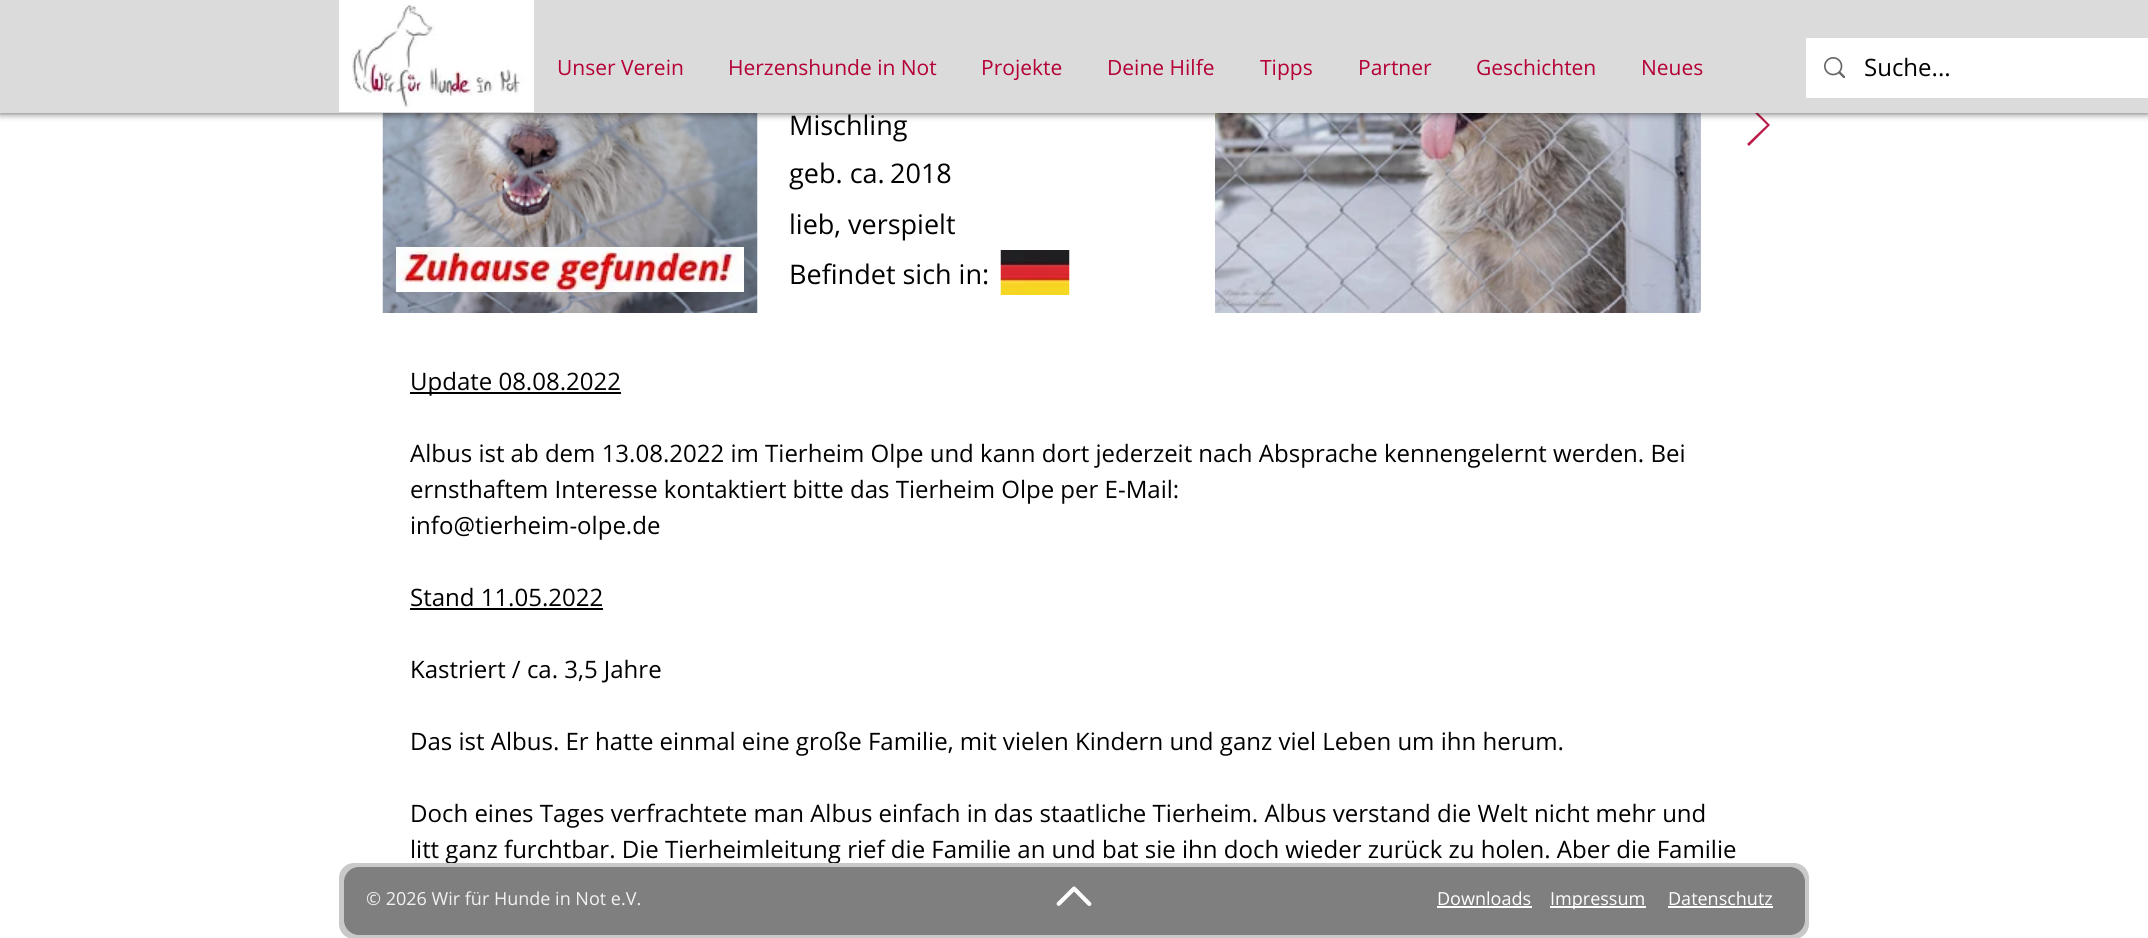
#include <cairo.h>
#include <math.h>
#include <stddef.h>

static cairo_t *c;
static void C(unsigned color){cairo_set_source_rgb(c, (color >> 16) / 255.0, (color >> 8 & 255) / 255.0, (color & 255) / 255.0);}
static void F(const char *family, double size, int italic, int bold){cairo_select_font_face(c, family, italic ? CAIRO_FONT_SLANT_ITALIC : CAIRO_FONT_SLANT_NORMAL,bold ? CAIRO_FONT_WEIGHT_BOLD : CAIRO_FONT_WEIGHT_NORMAL);cairo_set_font_size(c, size);}
static void T(double x, double y, const char *s){cairo_move_to(c, x, y);cairo_show_text(c, s);}
static void R(double x, double y, double w, double h){cairo_rectangle(c, x, y, w, h);cairo_fill(c);}
static void Q(double x, double y, double w, double h, double r){cairo_new_sub_path(c);cairo_arc(c, x + w - r, y + h - r, r, 0, M_PI / 2);cairo_arc(c, x + r, y + h - r, r, M_PI / 2, M_PI);cairo_arc(c, x + r, y + r, r, M_PI, 1.5 * M_PI);cairo_arc(c, x + w - r, y + r, r, 1.5 * M_PI, 2 * M_PI);cairo_close_path(c);}
static void S(double x, double y, double w, double h, double r, double blur, double alpha){cairo_push_group_with_content(c, CAIRO_CONTENT_ALPHA);cairo_set_operator(c, CAIRO_OPERATOR_SOURCE);for (int i = 15; i >= -15 && fmin(w, h) + blur * i / 3 > 0; i -= 2) {double e = blur * i / 6;cairo_set_source_rgba(c, 0, 0, 0, alpha * erfc((i - 1) / 8.5) / 2);Q(x - e, y - e, w + 2 * e, h + 2 * e, fmax(0, fmin(r + e + blur * .6, fmin(w, h) / 2 + e)));cairo_fill(c);}cairo_pattern_t *soft = cairo_pop_group(c);cairo_mask(c, soft);cairo_pattern_destroy(soft);}
static void I(const char *path, double x, double y, double w, double h){cairo_surface_t *image = cairo_image_surface_create_from_png(path);cairo_save(c);cairo_set_source_surface(c, image, x, y);cairo_rectangle(c, x, y, w, h);cairo_fill(c);cairo_restore(c);cairo_surface_destroy(image);}
int main(void) {
cairo_surface_t *surface = cairo_image_surface_create(CAIRO_FORMAT_RGB24, 2148, 938);
c = cairo_create(surface);
cairo_font_options_t *options = cairo_font_options_create();
cairo_font_options_set_hint_metrics(options, CAIRO_HINT_METRICS_OFF);
cairo_font_options_set_hint_style(options, CAIRO_HINT_STYLE_NONE);
cairo_set_font_options(c, options);
cairo_set_miter_limit(c, 4);
C(0xffffff);
cairo_paint(c);
I("3.png",382,113,376,200);
I("5.png",1699,113,2,200);
I("4.png",1215,113,485,200);
C(0xbc1a48);
cairo_new_path(c);
cairo_move_to(c,1747,105);
cairo_line_to(c,1749,104);
cairo_line_to(c,1770,125);
cairo_line_to(c,1749,146);
cairo_line_to(c,1747,144);
cairo_line_to(c,1767,125);
cairo_close_path(c);
cairo_fill(c);
C(0x000000);
S(0,0,2148,113,0,4,.7);
C(0xdbdbdb);
R(0,0,2148,113);
I("1.png",339,0,195,112);
F("Open Sans",21,0,0);
C(0xb40034);
T(557,75,"Unser Verein");
T(728,75,"Herzenshunde in Not");
T(981,75,"Projekte");
T(1107,75,"Deine Hilfe");
T(1260,75,"Tipps");
T(1358,75,"Partner");
T(1476,75,"Geschichten");
T(1641,75,"Neues");
C(0xffffff);
R(1806,38,342,60);
I("2.png",1824,57,21,21);
F("Open Sans",24,0,0);
C(0x000000);
T(1864,76,"Suche...");
F("Open Sans",27,0,0);
T(789,135,"Mischling");
T(789,183,"geb. ca.");
T(890,183,"2018");
T(789,234,"lieb, verspielt");
I("6.png",396,247,348,45);
T(789,284,"Befindet sich in:");
I("7.png",1000,250,70,45);
R(410,392,211,2);
F("Open Sans",24,0,0);
T(410,390,"Update 08.08.2022");
T(410,462,"Albus ist ab dem 13.08.2022 im Tierheim Olpe und kann dort jederzeit nach Absprache kennengelernt werden. Bei");
T(410,498,"ernsthaftem Interesse kontaktiert bitte das Tierheim Olpe per E-Mail:");
T(410,534,"info@tierheim-olpe.de");
T(410,606,"Stand 11.05.2022");
R(410,608,193,2);
T(410,678,"Kastriert / ca. 3,5 Jahre");
T(410,750,"Das ist Albus. Er hatte einmal eine große Familie, mit vielen Kindern und ganz viel Leben um ihn herum.");
T(410,822,"Doch eines Tages verfrachtete man Albus einfach in das staatliche Tierheim. Albus verstand die Welt nicht mehr und");
T(410,858,"litt ganz furchtbar. Die Tierheimleitung rief die Familie an und bat sie ihn doch wieder zurück zu holen. Aber die Familie");
C(0xc9c9c9);
Q(339,863,1470,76,15);
cairo_fill(c);
C(0x7f7f7f);
Q(344,867,1461,68,15);
cairo_fill(c);
F("Open Sans",18,0,0);
C(0xf2f2f2);
T(366,905,"© 2026 Wir für Hunde in Not e.V.");
I("8.png",1056,886,36,20);
C(0xffffff);
T(1437,905,"Downloads");
R(1437,906,95,2);
R(1550,906,96,2);
T(1550,905,"Impressum");
T(1668,905,"Datenschutz");
R(1668,906,105,2);
cairo_surface_write_to_png(surface, "o.png");
cairo_font_options_destroy(options);
cairo_destroy(c);
cairo_surface_destroy(surface);
return 0;
}
